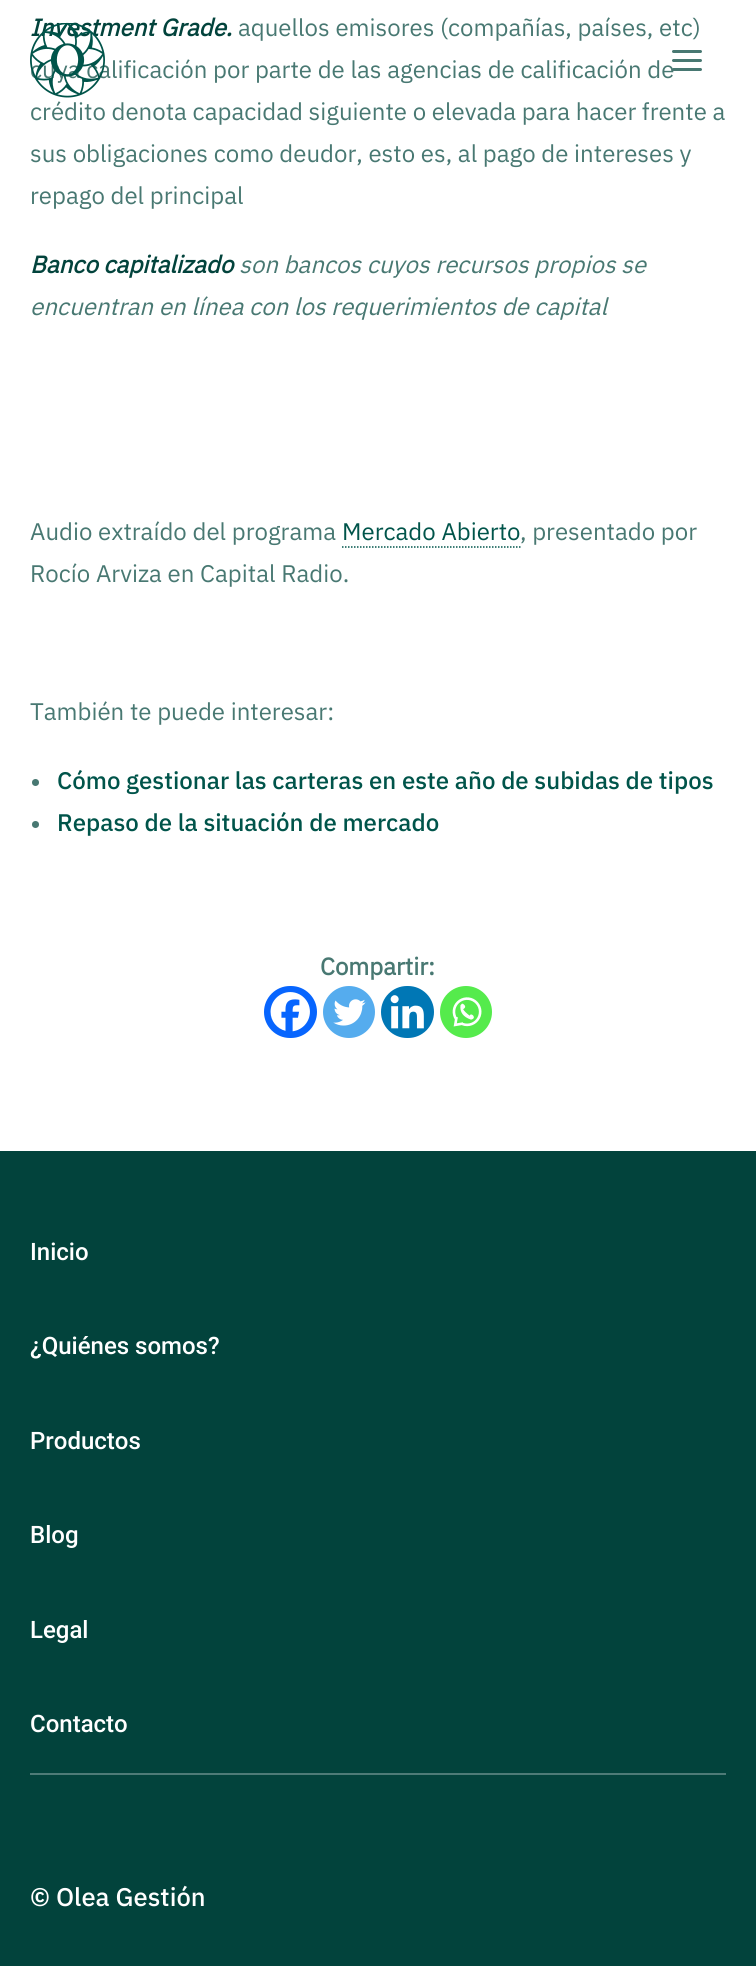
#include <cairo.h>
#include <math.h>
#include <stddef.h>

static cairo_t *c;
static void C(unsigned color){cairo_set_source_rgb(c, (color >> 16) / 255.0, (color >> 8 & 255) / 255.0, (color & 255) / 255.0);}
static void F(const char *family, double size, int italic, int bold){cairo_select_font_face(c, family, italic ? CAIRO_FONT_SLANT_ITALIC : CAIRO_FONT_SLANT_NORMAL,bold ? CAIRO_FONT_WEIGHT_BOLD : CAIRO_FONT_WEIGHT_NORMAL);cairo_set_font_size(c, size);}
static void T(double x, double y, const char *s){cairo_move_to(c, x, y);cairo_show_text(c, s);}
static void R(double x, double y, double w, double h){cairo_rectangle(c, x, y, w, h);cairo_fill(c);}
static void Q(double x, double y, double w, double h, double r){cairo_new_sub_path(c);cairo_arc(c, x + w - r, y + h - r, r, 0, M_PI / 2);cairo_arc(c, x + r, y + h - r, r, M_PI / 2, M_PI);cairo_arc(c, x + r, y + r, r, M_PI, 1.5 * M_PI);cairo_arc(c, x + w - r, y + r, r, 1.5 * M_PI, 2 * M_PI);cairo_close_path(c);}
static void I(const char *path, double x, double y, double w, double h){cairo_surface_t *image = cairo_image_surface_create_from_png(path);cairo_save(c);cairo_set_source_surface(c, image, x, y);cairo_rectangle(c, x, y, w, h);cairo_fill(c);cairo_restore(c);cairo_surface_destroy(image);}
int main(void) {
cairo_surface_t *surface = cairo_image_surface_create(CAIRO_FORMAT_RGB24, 756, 1966);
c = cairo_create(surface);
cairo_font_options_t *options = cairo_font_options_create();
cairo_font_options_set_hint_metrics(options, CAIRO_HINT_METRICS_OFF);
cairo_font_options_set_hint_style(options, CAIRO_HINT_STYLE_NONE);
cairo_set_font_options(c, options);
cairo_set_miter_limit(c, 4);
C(0xffffff);
cairo_paint(c);
F("IBM Plex Sans",24,1,1);
C(0x02433c);
T(30,36,"Investment Grade.");
F("IBM Plex Sans",24,0,0);
C(0x487872);
T(238,36,"aquellos emisores (compañías, países, etc)");
T(30,78,"cuya calificación por parte de las agencias de calificación de");
T(30,120,"crédito denota capacidad siguiente o elevada para hacer frente a");
T(30,162,"sus obligaciones como deudor, esto es, al pago de intereses y");
T(30,204,"repago del principal");
F("IBM Plex Sans",24,1,1);
C(0x02433c);
T(30,273,"Banco capitalizado");
F("IBM Plex Sans",24,1,0);
C(0x487872);
T(239,273,"son bancos cuyos recursos propios se");
T(30,315,"encuentran en línea con los requerimientos de capital");
F("IBM Plex Sans",24,0,0);
T(30,540,"Audio extraído del programa");
C(0x00544a);
T(342,540,"Mercado Abierto");
cairo_new_path(c);
cairo_move_to(c,342,547);
cairo_line_to(c,520.5,547);
cairo_set_line_width(c,1.5);
cairo_set_dash(c,(double[]){1.5,1.5},2,0);
cairo_stroke(c);
C(0x487872);
T(520,540,", presentado por");
T(30,582,"Rocío Arviza en Capital Radio.");
T(30,720,"También te puede interesar:");
cairo_new_path(c);
cairo_arc(c,35.5,782.5,3.5,0,2 * M_PI);
cairo_fill(c);
F("IBM Plex Sans Medium",24,0,0);
C(0x00544a);
T(57,789,"Cómo gestionar las carteras en este año de subidas de tipos");
C(0x487872);
cairo_new_path(c);
cairo_arc(c,35.5,824.5,3.5,0,2 * M_PI);
cairo_fill(c);
C(0x00544a);
T(57,831,"Repaso de la situación de mercado");
F("IBM Plex Sans",24,0,1);
C(0x487872);
T(320,975,"Compartir:");
C(0x0765fe);
Q(264,986,53,52,26);
cairo_fill(c);
I("1.png",270,992,40,40);
C(0x55acee);
cairo_arc(c,349,1012,26,0,2 * M_PI);
cairo_fill(c);
I("2.png",333,999,33,27);
C(0x0077b5);
Q(381,986,53,52,26);
cairo_fill(c);
I("3.png",390,995,34,34);
C(0x55eb4c);
cairo_arc(c,466,1012,26,0,2 * M_PI);
cairo_fill(c);
I("4.png",452,997,30,30);
C(0x02433c);
R(0,1151,756,815);
F("Roboto Medium",24,0,0);
C(0xffffff);
T(30,1260,"Inicio");
T(30,1354,"¿Quiénes somos?");
T(30,1449,"Productos");
T(30,1543,"Blog");
T(30,1638,"Legal");
C(0x4e7b77);
R(30,1773,696,2);
C(0xffffff);
T(30,1732,"Contacto");
F("IBM Plex Sans Medium",25.5,0,0);
T(30,1906,"© Olea Gestión");
I("5.png",30,23,75,75);
C(0x487872);
Q(672,59,30,3,1.5);
cairo_fill(c);
Q(672,50,30,3,1.5);
cairo_fill(c);
Q(672,68,30,3,1.5);
cairo_fill(c);
cairo_surface_write_to_png(surface, "o.png");
cairo_font_options_destroy(options);
cairo_destroy(c);
cairo_surface_destroy(surface);
return 0;
}
